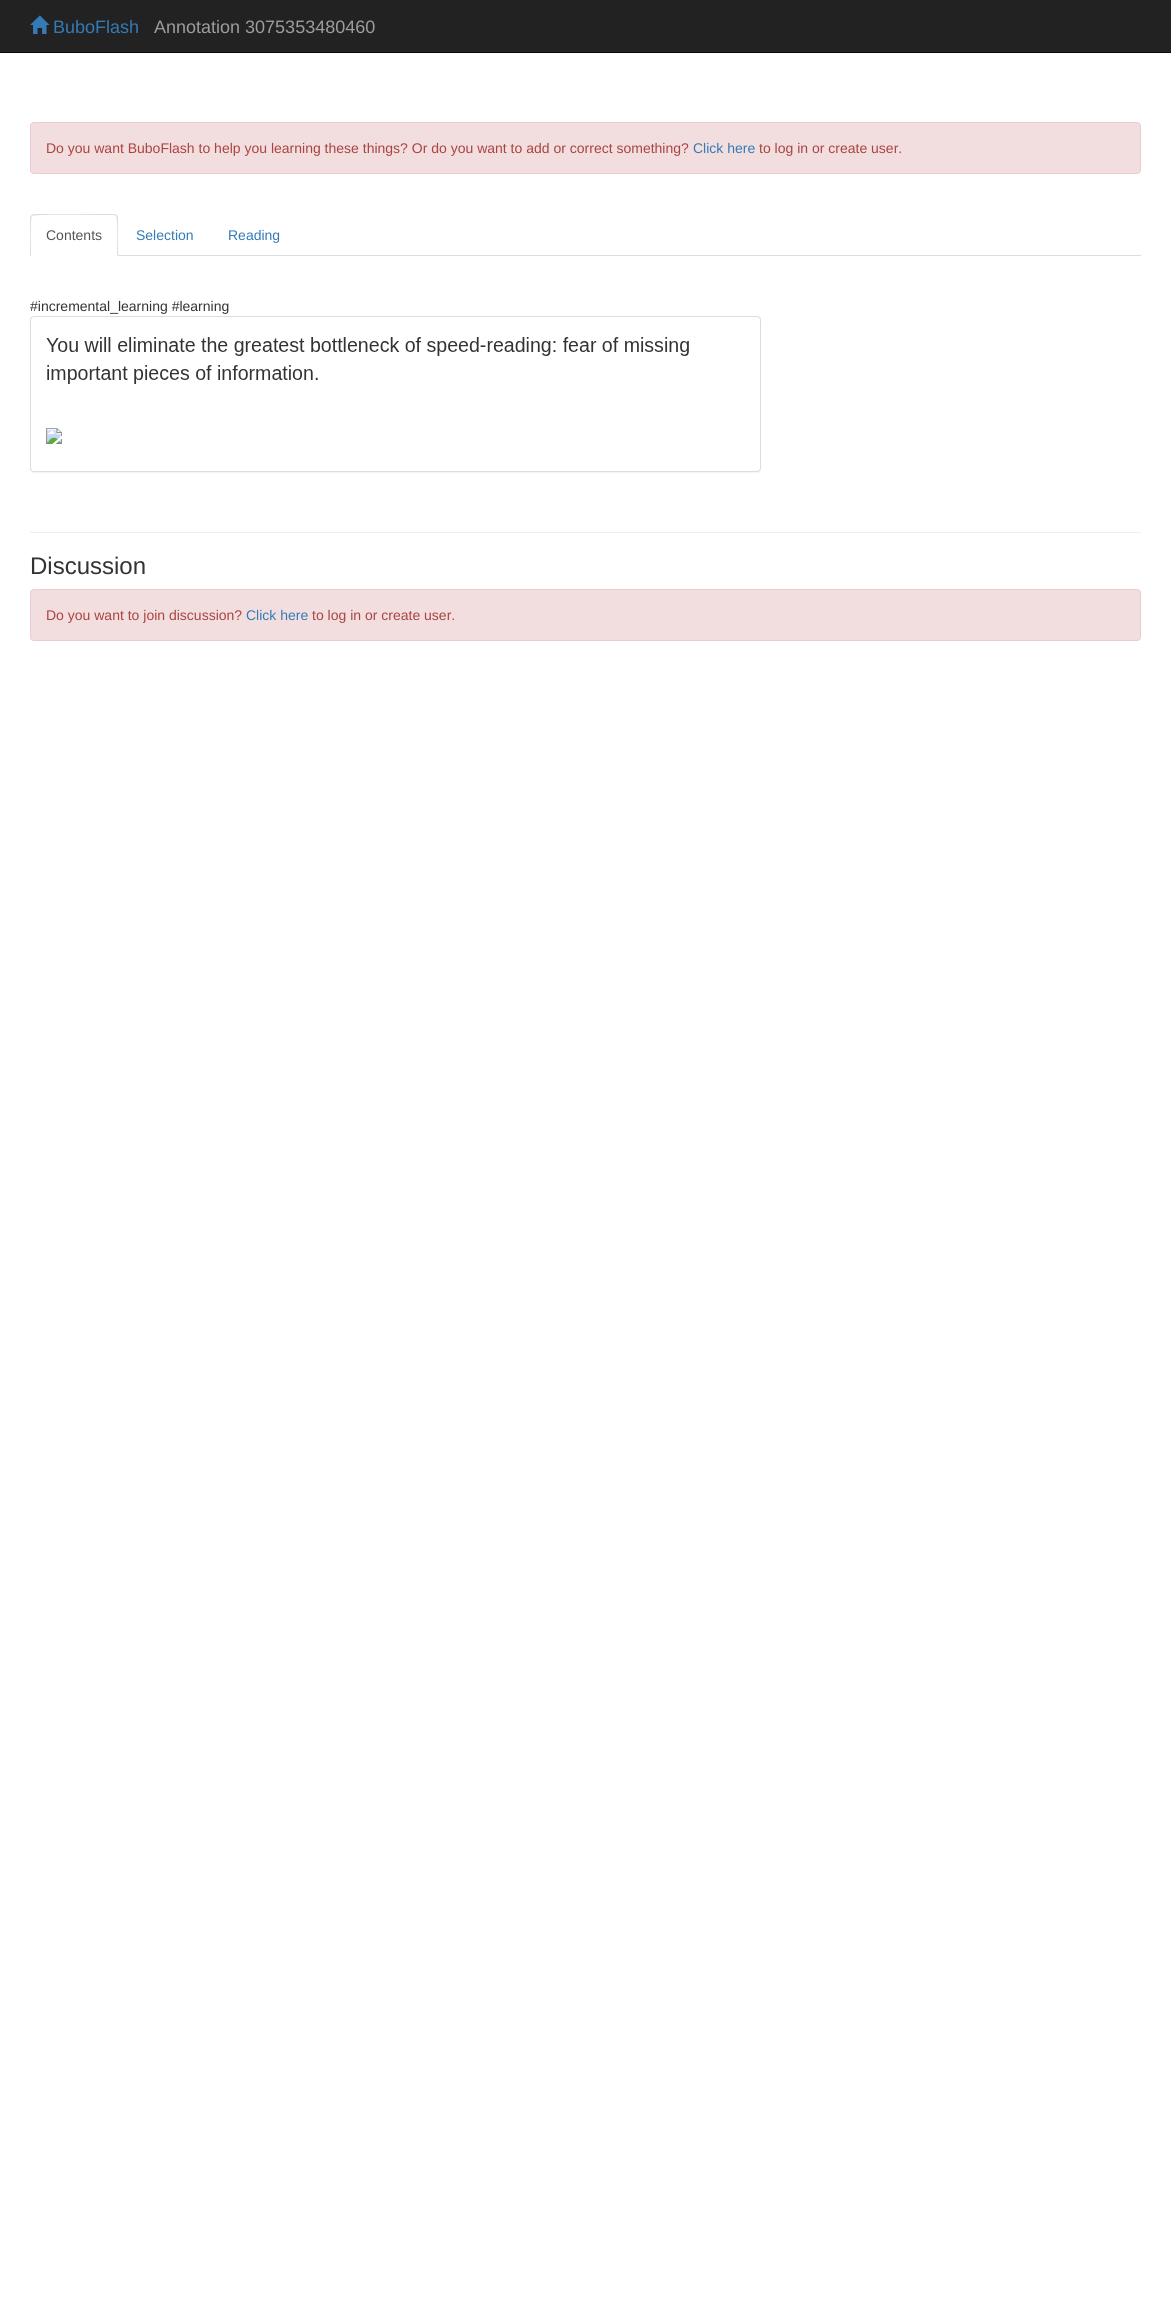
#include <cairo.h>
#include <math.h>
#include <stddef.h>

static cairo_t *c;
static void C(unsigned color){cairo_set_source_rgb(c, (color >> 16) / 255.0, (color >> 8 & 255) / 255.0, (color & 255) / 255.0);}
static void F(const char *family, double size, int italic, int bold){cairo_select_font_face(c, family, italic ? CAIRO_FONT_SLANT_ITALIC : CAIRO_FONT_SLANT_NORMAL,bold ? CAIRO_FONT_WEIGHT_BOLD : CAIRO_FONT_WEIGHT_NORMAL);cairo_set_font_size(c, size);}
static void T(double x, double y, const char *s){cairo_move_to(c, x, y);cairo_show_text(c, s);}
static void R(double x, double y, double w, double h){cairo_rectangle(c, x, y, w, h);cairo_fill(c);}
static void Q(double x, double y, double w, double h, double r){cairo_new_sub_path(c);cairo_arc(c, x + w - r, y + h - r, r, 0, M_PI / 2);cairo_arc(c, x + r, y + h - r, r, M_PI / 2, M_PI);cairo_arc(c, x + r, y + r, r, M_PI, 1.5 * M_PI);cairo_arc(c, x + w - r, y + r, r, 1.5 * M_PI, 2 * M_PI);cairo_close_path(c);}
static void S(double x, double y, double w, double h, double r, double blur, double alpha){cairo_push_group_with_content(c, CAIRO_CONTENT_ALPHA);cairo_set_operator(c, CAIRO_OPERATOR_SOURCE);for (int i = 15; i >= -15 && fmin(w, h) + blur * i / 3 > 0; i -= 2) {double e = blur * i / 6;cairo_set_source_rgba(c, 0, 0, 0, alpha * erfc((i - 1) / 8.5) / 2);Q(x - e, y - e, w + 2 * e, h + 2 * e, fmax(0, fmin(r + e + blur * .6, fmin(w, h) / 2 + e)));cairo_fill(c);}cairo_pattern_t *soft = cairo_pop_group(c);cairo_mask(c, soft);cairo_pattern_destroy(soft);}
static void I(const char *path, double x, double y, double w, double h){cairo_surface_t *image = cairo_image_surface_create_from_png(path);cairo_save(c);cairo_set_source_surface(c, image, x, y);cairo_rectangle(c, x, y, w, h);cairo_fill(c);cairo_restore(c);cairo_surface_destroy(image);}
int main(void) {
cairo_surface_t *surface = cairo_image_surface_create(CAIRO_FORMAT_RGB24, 1171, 2298);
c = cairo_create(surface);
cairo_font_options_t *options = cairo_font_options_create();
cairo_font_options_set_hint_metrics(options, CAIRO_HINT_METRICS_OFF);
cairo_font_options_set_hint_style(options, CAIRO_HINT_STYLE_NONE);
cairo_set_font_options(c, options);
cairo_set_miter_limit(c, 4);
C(0xffffff);
cairo_paint(c);
C(0x222222);
R(0,0,1171,52);
C(0x080808);
R(0,52,1171,1);
I("1.png",30,15,20,19);
F("Liberation Sans",18,0,0);
C(0x337ab7);
T(53,33,"BuboFlash");
C(0x9d9d9d);
T(154,33,"Annotation 3075353480460");
C(0xf2dede);
Q(30.5,122.5,1110,51,3.5);
cairo_fill_preserve(c);
C(0xebccd1);
cairo_set_line_width(c,1);
cairo_stroke(c);
F("Liberation Sans",14,0,0);
C(0xa94442);
T(46,153,"Do you want BuboFlash to help you learning these things? Or do you want to add or correct something?");
C(0x337ab7);
T(693,153,"Click here");
C(0xa94442);
T(759,153,"to log in or create user.");
C(0xdddddd);
R(118,255,1023,1);
cairo_new_path(c);
cairo_move_to(c,34,214);
cairo_line_to(c,31,215);
cairo_line_to(c,32,216);
cairo_curve_to(c,34,214,93,215,101,215);
cairo_line_to(c,114,215);
cairo_line_to(c,116,216);
cairo_line_to(c,117,215);
cairo_line_to(c,114,214);
cairo_close_path(c);
cairo_fill(c);
cairo_new_path(c);
cairo_move_to(c,118,256);
cairo_line_to(c,118,218);
cairo_curve_to(c,118,217,118,216,117,215);
cairo_line_to(c,116,216);
cairo_curve_to(c,118,218,117,250,117,255);
cairo_close_path(c);
cairo_fill(c);
cairo_new_path(c);
cairo_move_to(c,30,256);
cairo_line_to(c,31,255);
cairo_curve_to(c,31,250,30,218,32,216);
cairo_line_to(c,31,215);
cairo_line_to(c,30,218);
cairo_close_path(c);
cairo_fill(c);
C(0x555555);
T(46,240,"Contents");
C(0x337ab7);
T(136,240,"Selection");
T(228,240,"Reading");
C(0x333333);
T(30,311,"#incremental_learning #learning");
C(0x000000);
S(30,317,731,156,4,.5,.05);
C(0xffffff);
Q(30.5,316.5,730,155,3.5);
cairo_fill_preserve(c);
C(0xdddddd);
cairo_stroke(c);
I("2.png",46,337,643,107);
C(0xeeeeee);
R(30,532,1111,1);
F("Liberation Sans",24,0,0);
C(0x333333);
T(30,574,"Discussion");
C(0xf2dede);
Q(30.5,589.5,1110,51,3.5);
cairo_fill_preserve(c);
C(0xebccd1);
cairo_stroke(c);
F("Liberation Sans",14,0,0);
C(0xa94442);
T(46,620,"Do you want to join discussion?");
C(0x337ab7);
T(246,620,"Click here");
C(0xa94442);
T(312,620,"to log in or create user.");
cairo_surface_write_to_png(surface, "o.png");
cairo_font_options_destroy(options);
cairo_destroy(c);
cairo_surface_destroy(surface);
return 0;
}
